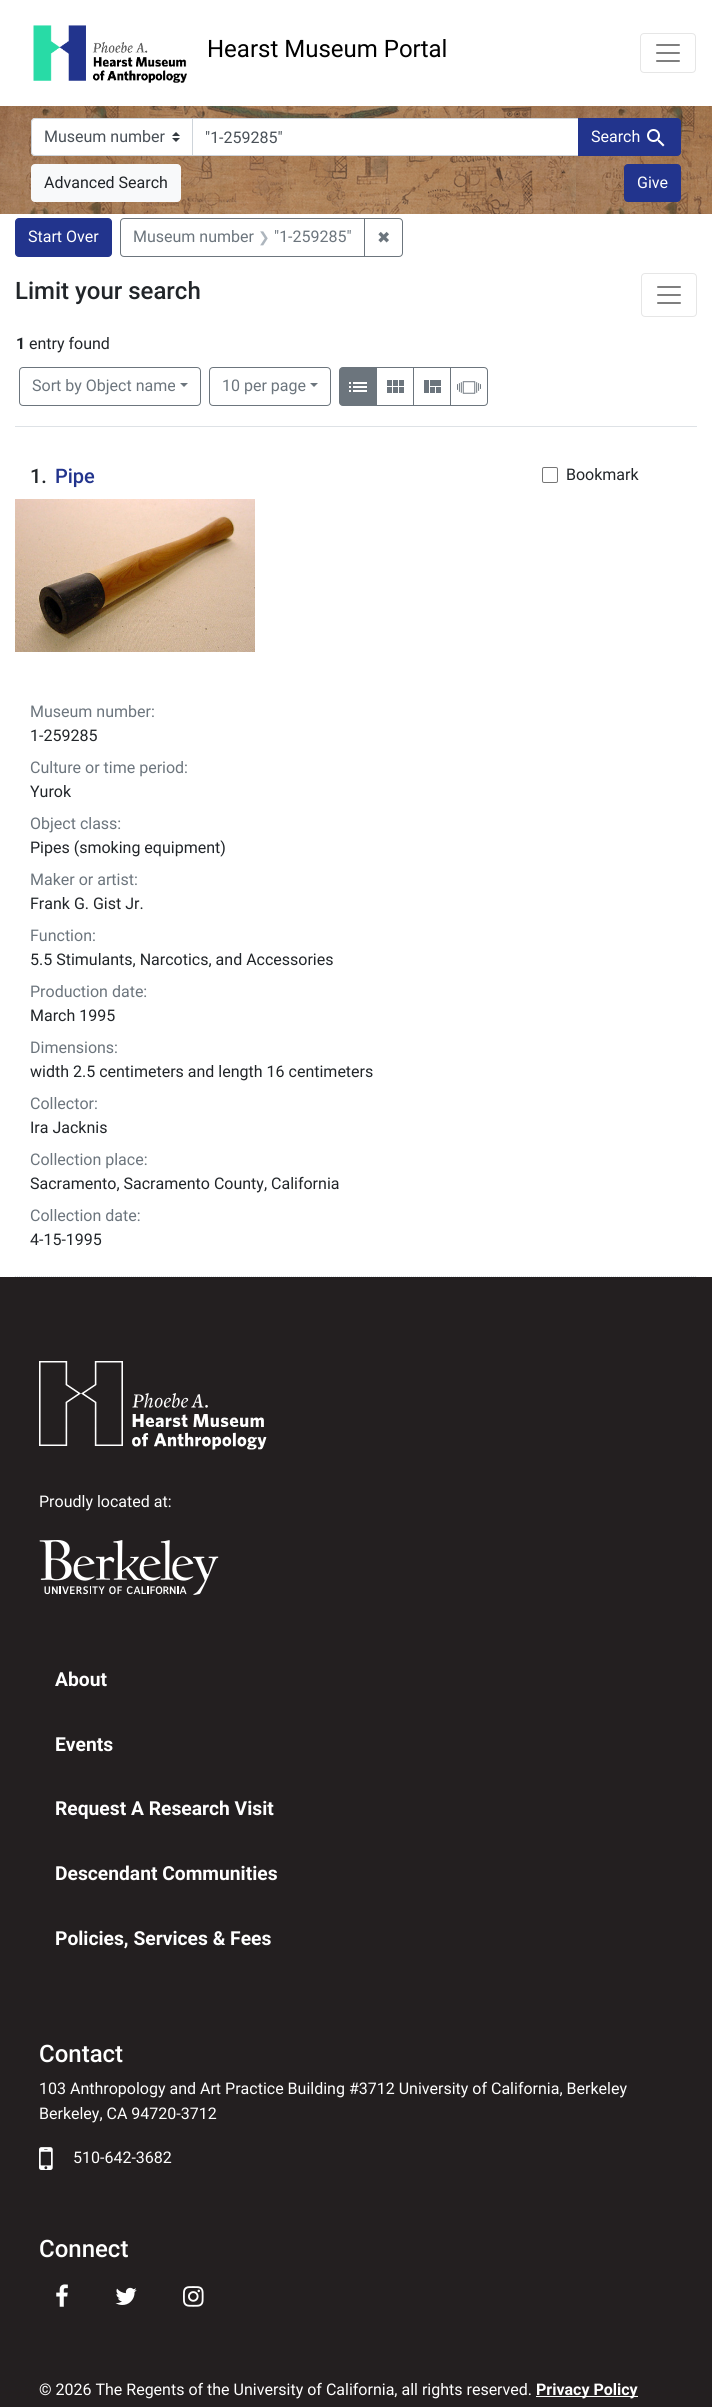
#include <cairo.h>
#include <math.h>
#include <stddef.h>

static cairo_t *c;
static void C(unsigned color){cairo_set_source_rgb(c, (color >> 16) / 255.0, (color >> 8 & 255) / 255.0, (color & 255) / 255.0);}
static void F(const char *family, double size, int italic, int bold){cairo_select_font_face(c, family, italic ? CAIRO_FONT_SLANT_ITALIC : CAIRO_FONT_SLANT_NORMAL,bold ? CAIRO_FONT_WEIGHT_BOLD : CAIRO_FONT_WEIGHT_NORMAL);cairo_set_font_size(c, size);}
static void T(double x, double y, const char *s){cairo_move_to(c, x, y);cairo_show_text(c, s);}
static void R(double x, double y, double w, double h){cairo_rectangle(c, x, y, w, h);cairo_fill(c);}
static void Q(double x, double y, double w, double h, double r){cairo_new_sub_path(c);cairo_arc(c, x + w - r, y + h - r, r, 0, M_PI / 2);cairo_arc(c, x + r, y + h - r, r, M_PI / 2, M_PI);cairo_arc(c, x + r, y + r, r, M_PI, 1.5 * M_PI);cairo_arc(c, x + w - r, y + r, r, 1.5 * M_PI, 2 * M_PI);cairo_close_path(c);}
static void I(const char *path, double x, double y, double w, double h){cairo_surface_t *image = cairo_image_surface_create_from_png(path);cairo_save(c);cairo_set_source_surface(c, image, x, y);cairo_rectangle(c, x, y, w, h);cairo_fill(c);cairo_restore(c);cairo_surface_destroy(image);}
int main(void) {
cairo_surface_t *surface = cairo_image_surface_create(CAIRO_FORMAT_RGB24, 712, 2407);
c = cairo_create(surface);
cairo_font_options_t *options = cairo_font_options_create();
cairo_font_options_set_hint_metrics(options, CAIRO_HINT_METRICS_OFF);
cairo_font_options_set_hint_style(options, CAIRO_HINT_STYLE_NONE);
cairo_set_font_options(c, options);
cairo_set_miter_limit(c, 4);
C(0xffffff);
cairo_paint(c);
I("1.png",33,25,154,58);
F("Roboto",24,0,0);
C(0x000000);
T(207,57,"Hearst Museum Portal");
Q(640.5,33.5,55,39,3.5);
C(0xe6e6e6);
cairo_set_line_width(c,1);
cairo_stroke(c);
I("2.png",656,44,24,18);
I("3.png",0,106,712,108);
C(0xffffff);
cairo_new_path(c);
cairo_move_to(c,35,118);
cairo_line_to(c,193,118);
cairo_line_to(c,193,156);
cairo_line_to(c,35,156);
cairo_curve_to(c,33,156,31,154,31,152);
cairo_line_to(c,31,122);
cairo_curve_to(c,31,120,33,118,35,118);
cairo_close_path(c);
cairo_fill(c);
I("4.png",172,132,8,10);
cairo_new_path(c);
cairo_move_to(c,35,118.5);
cairo_line_to(c,192.5,118.5);
cairo_line_to(c,192.5,155.5);
cairo_line_to(c,35,155.5);
cairo_curve_to(c,33,155.5,31.5,154,31.5,152);
cairo_line_to(c,31.5,122);
cairo_curve_to(c,31.5,120,33,118.5,35,118.5);
cairo_close_path(c);
C(0xced4da);
cairo_stroke(c);
F("Roboto",16,0,0);
C(0x495057);
T(44,142,"Museum number");
C(0xffffff);
cairo_rectangle(c,192.5,118.5,386,37);
cairo_fill_preserve(c);
C(0xced4da);
cairo_stroke(c);
C(0x495057);
T(205,143,"\"1-259285\"");
C(0x22348d);
cairo_new_path(c);
cairo_move_to(c,578.5,118.5);
cairo_line_to(c,677,118.5);
cairo_curve_to(c,679,118.5,680.5,120,680.5,122);
cairo_line_to(c,680.5,152);
cairo_curve_to(c,680.5,154,679,155.5,677,155.5);
cairo_line_to(c,578.5,155.5);
cairo_close_path(c);
cairo_fill_preserve(c);
cairo_stroke(c);
C(0xffffff);
T(591,142,"Search");
I("5.png",647,129,18,18);
C(0xf8f9fa);
Q(31.5,164.5,149,37,3.5);
cairo_fill_preserve(c);
cairo_stroke(c);
C(0x212529);
T(44,188,"Advanced Search");
C(0x22348d);
Q(624.5,164.5,56,37,3.5);
cairo_fill_preserve(c);
cairo_stroke(c);
C(0xffffff);
T(637,188,"Give");
C(0x22348d);
Q(15.5,218.5,96,38,3.5);
cairo_fill_preserve(c);
cairo_stroke(c);
C(0xffffff);
T(28,242,"Start Over");
cairo_new_path(c);
cairo_move_to(c,124,218.5);
cairo_line_to(c,364.5,218.5);
cairo_line_to(c,364.5,256.5);
cairo_line_to(c,124,256.5);
cairo_curve_to(c,122,256.5,120.5,255,120.5,253);
cairo_line_to(c,120.5,222);
cairo_curve_to(c,120.5,220,122,218.5,124,218.5);
cairo_close_path(c);
C(0x6c757d);
cairo_stroke(c);
T(133,242,"Museum number");
F("DejaVu Sans",14,0,0);
C(0xadb5bd);
T(258,242,"❯");
F("Roboto",16,0,0);
C(0x6c757d);
T(274,242,"\"1-259285\"");
cairo_new_path(c);
cairo_move_to(c,364.5,218.5);
cairo_line_to(c,399,218.5);
cairo_curve_to(c,401,218.5,402.5,220,402.5,222);
cairo_line_to(c,402.5,253);
cairo_curve_to(c,402.5,255,401,256.5,399,256.5);
cairo_line_to(c,364.5,256.5);
cairo_close_path(c);
cairo_stroke(c);
F("DejaVu Sans",16,0,0);
T(377,243,"✖");
F("Roboto Medium",24,0,0);
C(0x212529);
T(15,299,"Limit your search");
Q(641.5,273.5,55,43,3.5);
C(0xe6e6e6);
cairo_stroke(c);
I("2.png",657,286,24,18);
C(0xdee2e6);
R(15,426,682,1);
F("Roboto",16,0,1);
C(0x212529);
T(16,349,"1");
F("Roboto",16,0,0);
T(29,349,"entry found");
Q(19.5,367.5,181,38,3.5);
C(0x6c757d);
cairo_stroke(c);
T(32,391,"Sort by Object name");
cairo_new_path(c);
cairo_move_to(c,180,383);
cairo_line_to(c,188,383);
cairo_line_to(c,184,387);
cairo_close_path(c);
cairo_fill(c);
Q(209.5,367.5,121,38,3.5);
cairo_stroke(c);
T(222,391,"10 per page");
cairo_new_path(c);
cairo_move_to(c,310,383);
cairo_line_to(c,318,383);
cairo_line_to(c,314,387);
cairo_close_path(c);
cairo_fill(c);
cairo_rectangle(c,376.5,367.5,37,38);
cairo_stroke(c);
cairo_new_path(c);
cairo_move_to(c,343,367.5);
cairo_line_to(c,376.5,367.5);
cairo_line_to(c,376.5,405.5);
cairo_line_to(c,343,405.5);
cairo_curve_to(c,341,405.5,339.5,404,339.5,402);
cairo_line_to(c,339.5,371);
cairo_curve_to(c,339.5,369,341,367.5,343,367.5);
cairo_close_path(c);
cairo_fill_preserve(c);
cairo_stroke(c);
I("6.png",349,382,18,10);
I("7.png",387,380,17,13);
cairo_rectangle(c,413.5,367.5,37,38);
cairo_stroke(c);
I("8.png",424,380,17,13);
cairo_new_path(c);
cairo_move_to(c,450.5,367.5);
cairo_line_to(c,484,367.5);
cairo_curve_to(c,486,367.5,487.5,369,487.5,371);
cairo_line_to(c,487.5,402);
cairo_curve_to(c,487.5,404,486,405.5,484,405.5);
cairo_line_to(c,450.5,405.5);
cairo_close_path(c);
cairo_stroke(c);
I("9.png",457,381,24,13);
cairo_new_path(c);
cairo_move_to(c,15,1276.5);
cairo_line_to(c,697,1276.5);
C(0xdee2e6);
cairo_set_dash(c,(double[]){1,1},2,0);
cairo_stroke(c);
F("Roboto Medium",20,0,0);
C(0x212529);
T(30,483,"1.");
C(0x22348d);
T(55,483,"Pipe");
Q(542.5,467.5,15,15,1.5);
C(0x767676);
cairo_set_dash(c,NULL,0,0);
cairo_stroke(c);
F("Roboto",16,0,0);
C(0x212529);
T(566,480,"Bookmark");
I("10.png",15,499,240,153);
C(0x6c757d);
T(30,717,"Museum number:");
C(0x212529);
T(30,741,"1-259285");
C(0x6c757d);
T(30,773,"Culture or time period:");
C(0x212529);
T(30,797,"Yurok");
C(0x6c757d);
T(30,829,"Object class:");
C(0x212529);
T(30,853,"Pipes (smoking equipment)");
C(0x6c757d);
T(30,885,"Maker or artist:");
C(0x212529);
T(30,909,"Frank G. Gist Jr.");
C(0x6c757d);
T(30,941,"Function:");
C(0x212529);
T(30,965,"5.5 Stimulants, Narcotics, and Accessories");
C(0x6c757d);
T(30,997,"Production date:");
C(0x212529);
T(30,1021,"March 1995");
C(0x6c757d);
T(30,1053,"Dimensions:");
C(0x212529);
T(30,1077,"width 2.5 centimeters and length 16 centimeters");
C(0x6c757d);
T(30,1109,"Collector:");
C(0x212529);
T(30,1133,"Ira Jacknis");
C(0x6c757d);
T(30,1165,"Collection place:");
C(0x212529);
T(30,1189,"Sacramento, Sacramento County, California");
C(0x6c757d);
T(30,1221,"Collection date:");
C(0x212529);
T(30,1245,"4-15-1995");
C(0x231f20);
R(0,1277,712,1130);
I("11.png",39,1361,228,89);
C(0xffffff);
T(39,1507,"Proudly located at:");
I("12.png",39,1540,180,55);
F("Roboto",19.25,0,1);
T(55,1686,"About");
T(55,1751,"Events");
T(55,1815,"Request A Research Visit");
T(55,1880,"Descendant Communities");
T(55,1945,"Policies, Services & Fees");
F("Roboto Medium",24,0,0);
T(39,2062,"Contact");
F("Roboto",16,0,0);
T(39,2094,"103 Anthropology and Art Practice Building #3712 University of California, Berkeley");
T(39,2119,"Berkeley, CA 94720-3712");
I("13.png",39,2147,14,23);
T(73,2163,"510-642-3682");
F("Roboto Medium",24,0,0);
T(39,2257,"Connect");
I("14.png",56,2284,12,23);
I("15.png",115,2287,22,18);
I("16.png",183,2286,21,21);
F("Roboto",16,0,0);
T(39,2395,"© 2026 The Regents of the University of California, all rights reserved.");
R(536,2396,102,1);
F("Roboto",16,0,1);
T(536,2395,"Privacy Policy");
cairo_surface_write_to_png(surface, "o.png");
cairo_font_options_destroy(options);
cairo_destroy(c);
cairo_surface_destroy(surface);
return 0;
}
